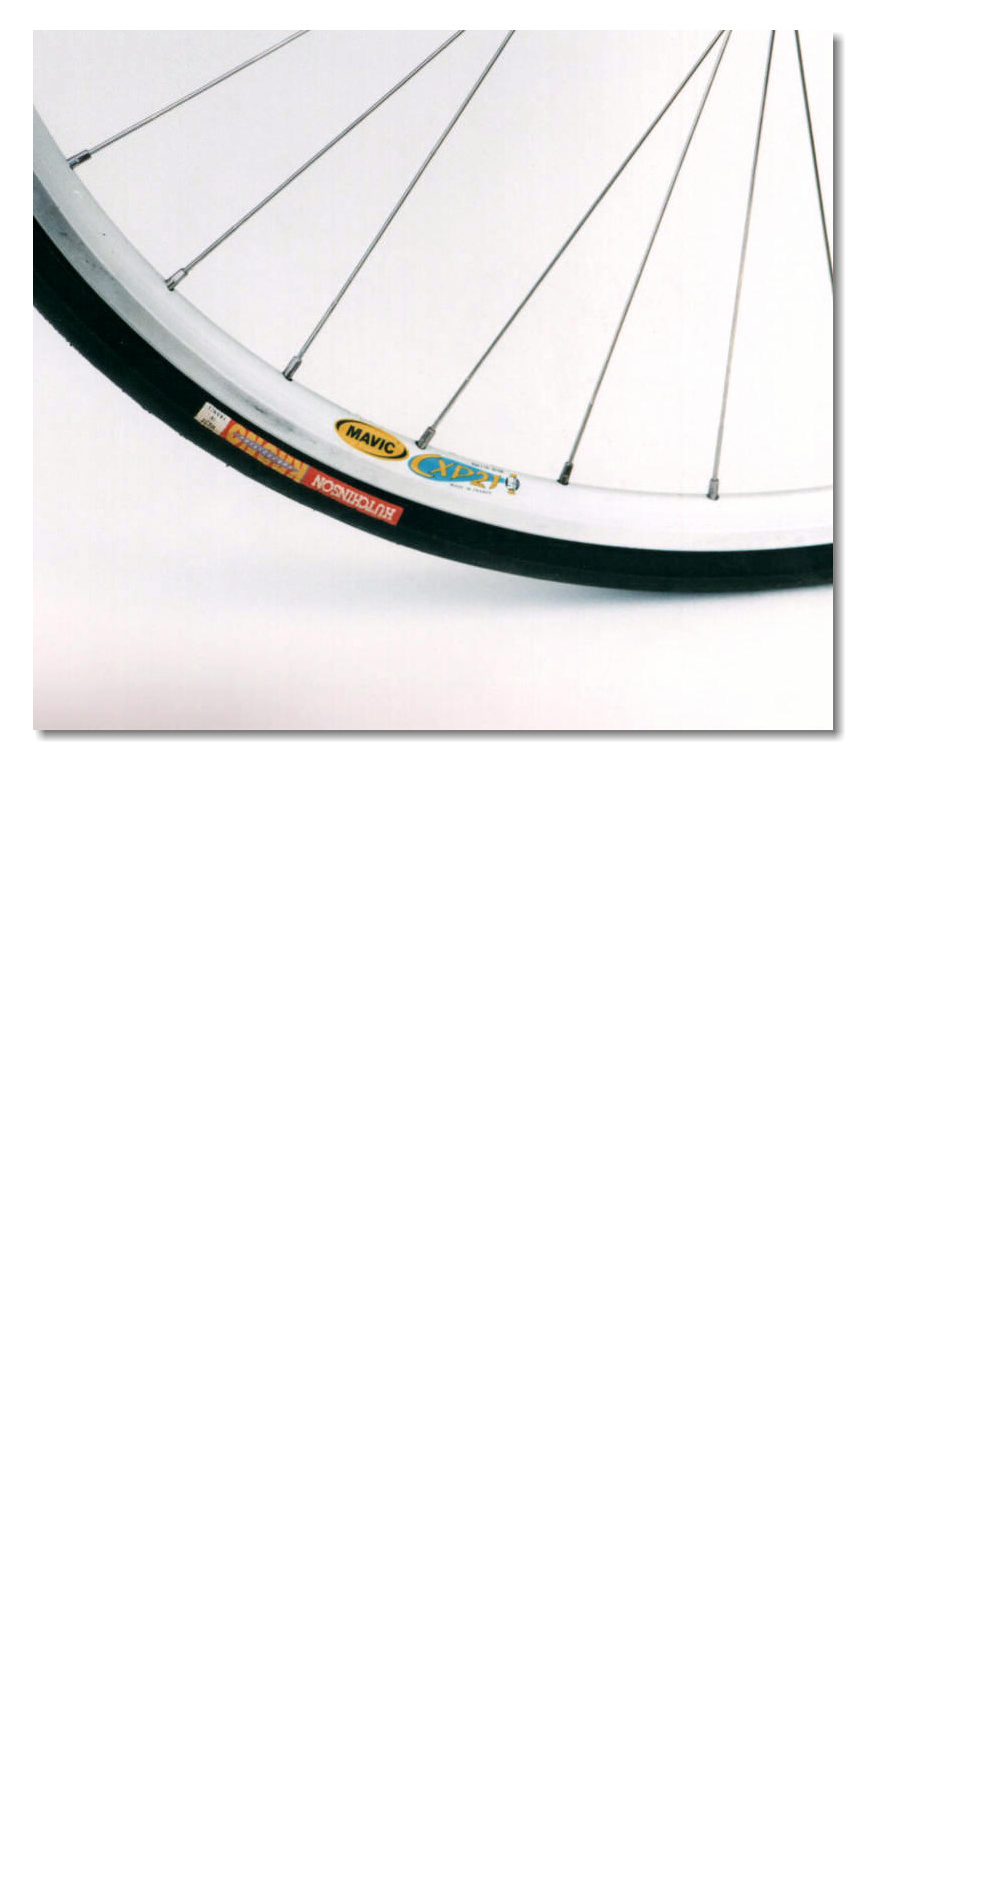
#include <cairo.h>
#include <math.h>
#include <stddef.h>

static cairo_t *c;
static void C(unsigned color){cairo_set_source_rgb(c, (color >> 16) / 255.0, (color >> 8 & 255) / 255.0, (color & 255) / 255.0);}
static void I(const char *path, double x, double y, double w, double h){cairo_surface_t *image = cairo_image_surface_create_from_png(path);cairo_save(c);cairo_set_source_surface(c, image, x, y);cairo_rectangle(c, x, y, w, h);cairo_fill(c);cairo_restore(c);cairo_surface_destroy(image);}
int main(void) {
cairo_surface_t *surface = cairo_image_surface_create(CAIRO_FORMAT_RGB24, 988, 1886);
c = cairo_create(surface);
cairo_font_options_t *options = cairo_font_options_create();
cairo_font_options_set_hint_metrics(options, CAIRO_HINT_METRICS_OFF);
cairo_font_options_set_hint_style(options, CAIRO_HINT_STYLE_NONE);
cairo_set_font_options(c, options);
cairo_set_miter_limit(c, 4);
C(0xffffff);
cairo_paint(c);
I("1.png",32,30,179,158);
I("2.png",211,24,217,164);
I("3.png",428,24,203,164);
I("4.png",631,24,214,164);
I("5.png",32,188,179,179);
I("6.png",211,188,217,179);
I("7.png",428,188,203,179);
I("8.png",631,188,214,179);
I("9.png",33,367,178,183);
I("10.png",211,367,217,183);
I("11.png",428,367,203,183);
I("12.png",631,367,214,183);
I("13.png",32,550,179,192);
I("14.png",211,550,217,192);
I("15.png",428,550,203,192);
I("16.png",631,550,214,192);
cairo_surface_write_to_png(surface, "o.png");
cairo_font_options_destroy(options);
cairo_destroy(c);
cairo_surface_destroy(surface);
return 0;
}
